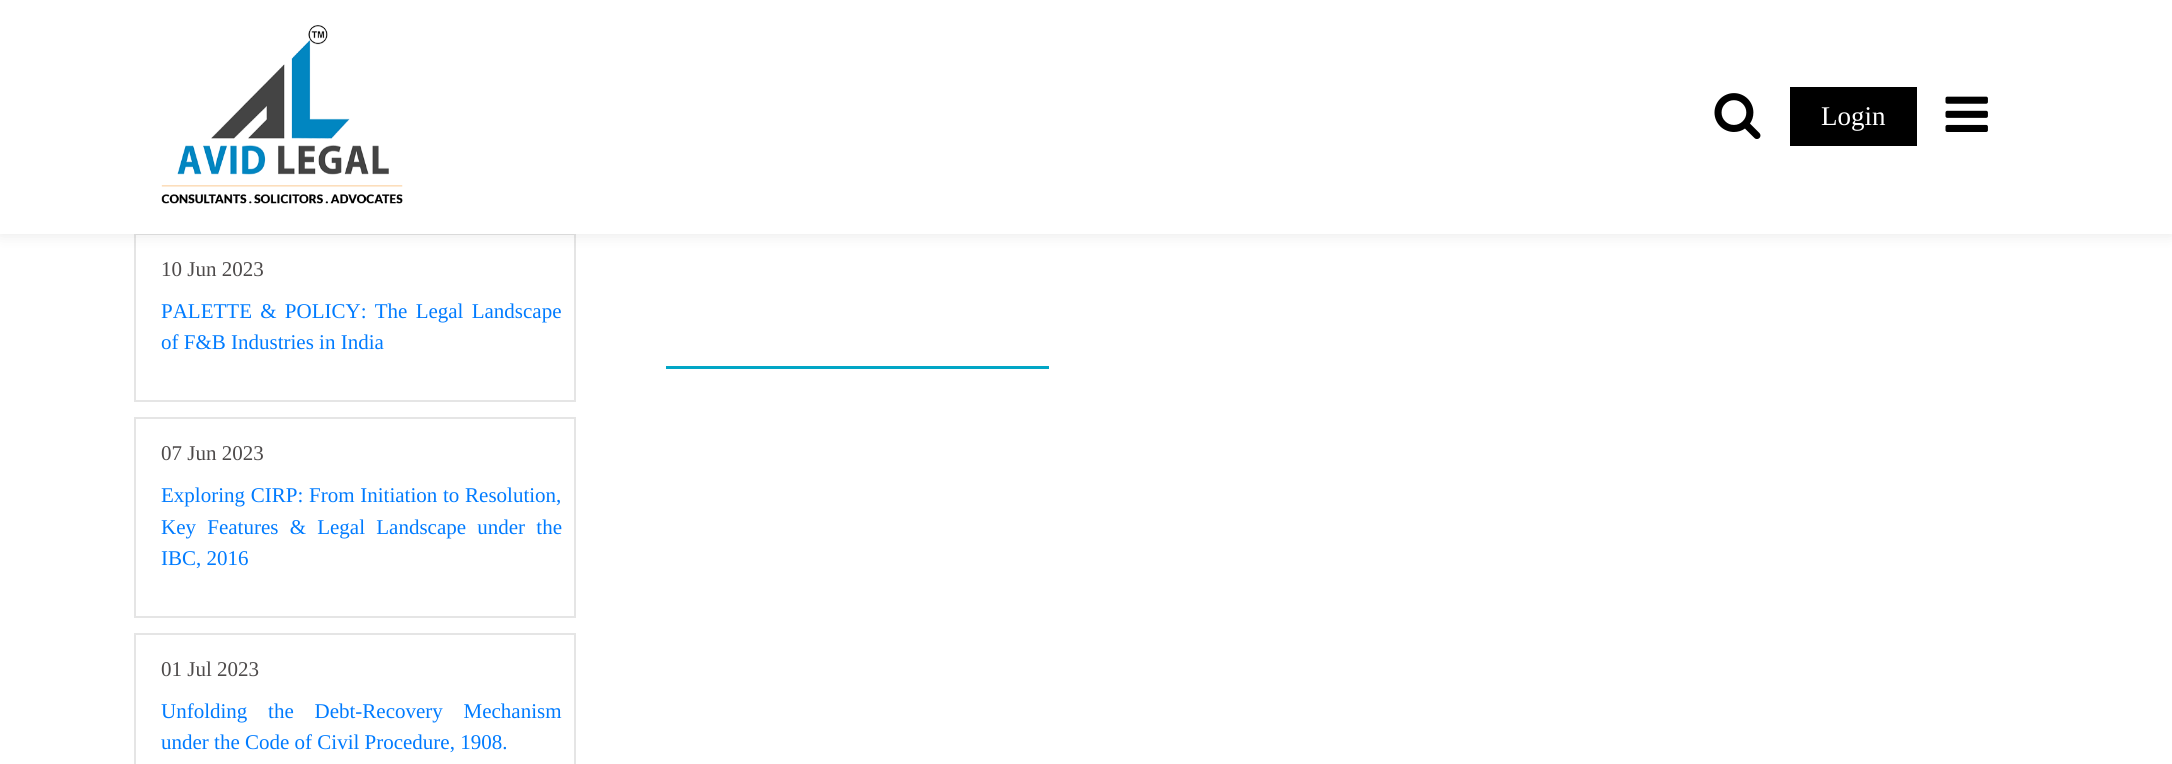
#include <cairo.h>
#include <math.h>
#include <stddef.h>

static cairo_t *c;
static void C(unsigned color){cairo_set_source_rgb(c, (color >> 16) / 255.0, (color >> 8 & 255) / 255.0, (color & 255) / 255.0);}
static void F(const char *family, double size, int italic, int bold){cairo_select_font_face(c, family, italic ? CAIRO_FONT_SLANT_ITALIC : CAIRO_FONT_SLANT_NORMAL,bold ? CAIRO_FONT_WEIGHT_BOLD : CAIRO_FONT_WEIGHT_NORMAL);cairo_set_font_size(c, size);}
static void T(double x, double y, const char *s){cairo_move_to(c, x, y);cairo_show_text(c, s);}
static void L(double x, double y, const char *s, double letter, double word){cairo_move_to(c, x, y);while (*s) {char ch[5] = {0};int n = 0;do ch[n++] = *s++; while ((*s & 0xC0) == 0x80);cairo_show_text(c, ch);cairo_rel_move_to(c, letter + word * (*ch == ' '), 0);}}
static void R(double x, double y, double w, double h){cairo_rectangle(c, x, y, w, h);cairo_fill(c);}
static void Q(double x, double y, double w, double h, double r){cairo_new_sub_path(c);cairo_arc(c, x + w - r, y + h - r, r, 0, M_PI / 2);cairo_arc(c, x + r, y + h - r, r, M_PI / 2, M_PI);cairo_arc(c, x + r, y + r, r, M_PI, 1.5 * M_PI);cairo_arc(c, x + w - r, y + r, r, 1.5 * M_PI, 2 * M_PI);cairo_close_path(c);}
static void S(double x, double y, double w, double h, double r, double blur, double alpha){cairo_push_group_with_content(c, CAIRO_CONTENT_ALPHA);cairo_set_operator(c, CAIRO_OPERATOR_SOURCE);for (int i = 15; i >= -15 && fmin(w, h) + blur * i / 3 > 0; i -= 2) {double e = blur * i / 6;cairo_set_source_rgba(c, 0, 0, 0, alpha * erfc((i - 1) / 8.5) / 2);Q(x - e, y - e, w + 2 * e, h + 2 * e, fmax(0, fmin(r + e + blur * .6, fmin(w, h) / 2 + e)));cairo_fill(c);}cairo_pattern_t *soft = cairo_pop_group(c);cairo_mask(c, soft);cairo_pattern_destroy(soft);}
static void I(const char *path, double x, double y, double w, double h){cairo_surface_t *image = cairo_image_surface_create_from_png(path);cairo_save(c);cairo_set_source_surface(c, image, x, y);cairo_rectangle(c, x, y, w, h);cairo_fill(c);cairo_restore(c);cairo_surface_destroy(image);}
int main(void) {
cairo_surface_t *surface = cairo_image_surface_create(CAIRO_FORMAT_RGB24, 2172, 764);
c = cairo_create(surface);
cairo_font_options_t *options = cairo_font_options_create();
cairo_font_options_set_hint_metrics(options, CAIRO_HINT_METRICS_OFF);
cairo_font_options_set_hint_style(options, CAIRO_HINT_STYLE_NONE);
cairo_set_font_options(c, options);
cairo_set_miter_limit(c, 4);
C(0xffffff);
cairo_paint(c);
cairo_rectangle(c,135,234,440,167);
C(0xe5e5e5);
cairo_stroke(c);
C(0x000000);
S(0,0,2172,234,0,7.5,.1);
C(0xffffff);
R(0,0,2172,234);
I("1.png",161,25,242,179);
I("2.png",1714,93,47,46);
C(0x000000);
R(1790,87,127,59);
F("Liberation Serif",27,0,0);
C(0xffffff);
T(1821,125,"Login");
I("3.png",1945,96,43,36);
F("Liberation Serif",21,0,0);
C(0x4d4a4a);
T(161,276,"10 Jun 2023");
C(0x007bff);
L(161,318,"PALETTE & POLICY: The Legal Landscape",0,3);
T(161,349,"of F&B Industries in India");
cairo_rectangle(c,135,418,440,199);
C(0xe5e5e5);
cairo_stroke(c);
C(0x4d4a4a);
T(161,460,"07 Jun 2023");
C(0x007bff);
L(161,502,"Exploring CIRP: From Initiation to Resolution,",0,.5);
L(161,534,"Key Features & Legal Landscape under the",0,6);
T(161,565,"IBC, 2016");
cairo_rectangle(c,135,634,440,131);
C(0xe5e5e5);
cairo_stroke(c);
C(0x4d4a4a);
T(161,676,"01 Jul 2023");
C(0x007bff);
L(161,718,"Unfolding the Debt-Recovery Mechanism",0,15.5);
T(161,749,"under the Code of Civil Procedure, 1908.");
C(0x01a6c6);
R(666,366,383,3);
cairo_surface_write_to_png(surface, "o.png");
cairo_font_options_destroy(options);
cairo_destroy(c);
cairo_surface_destroy(surface);
return 0;
}
